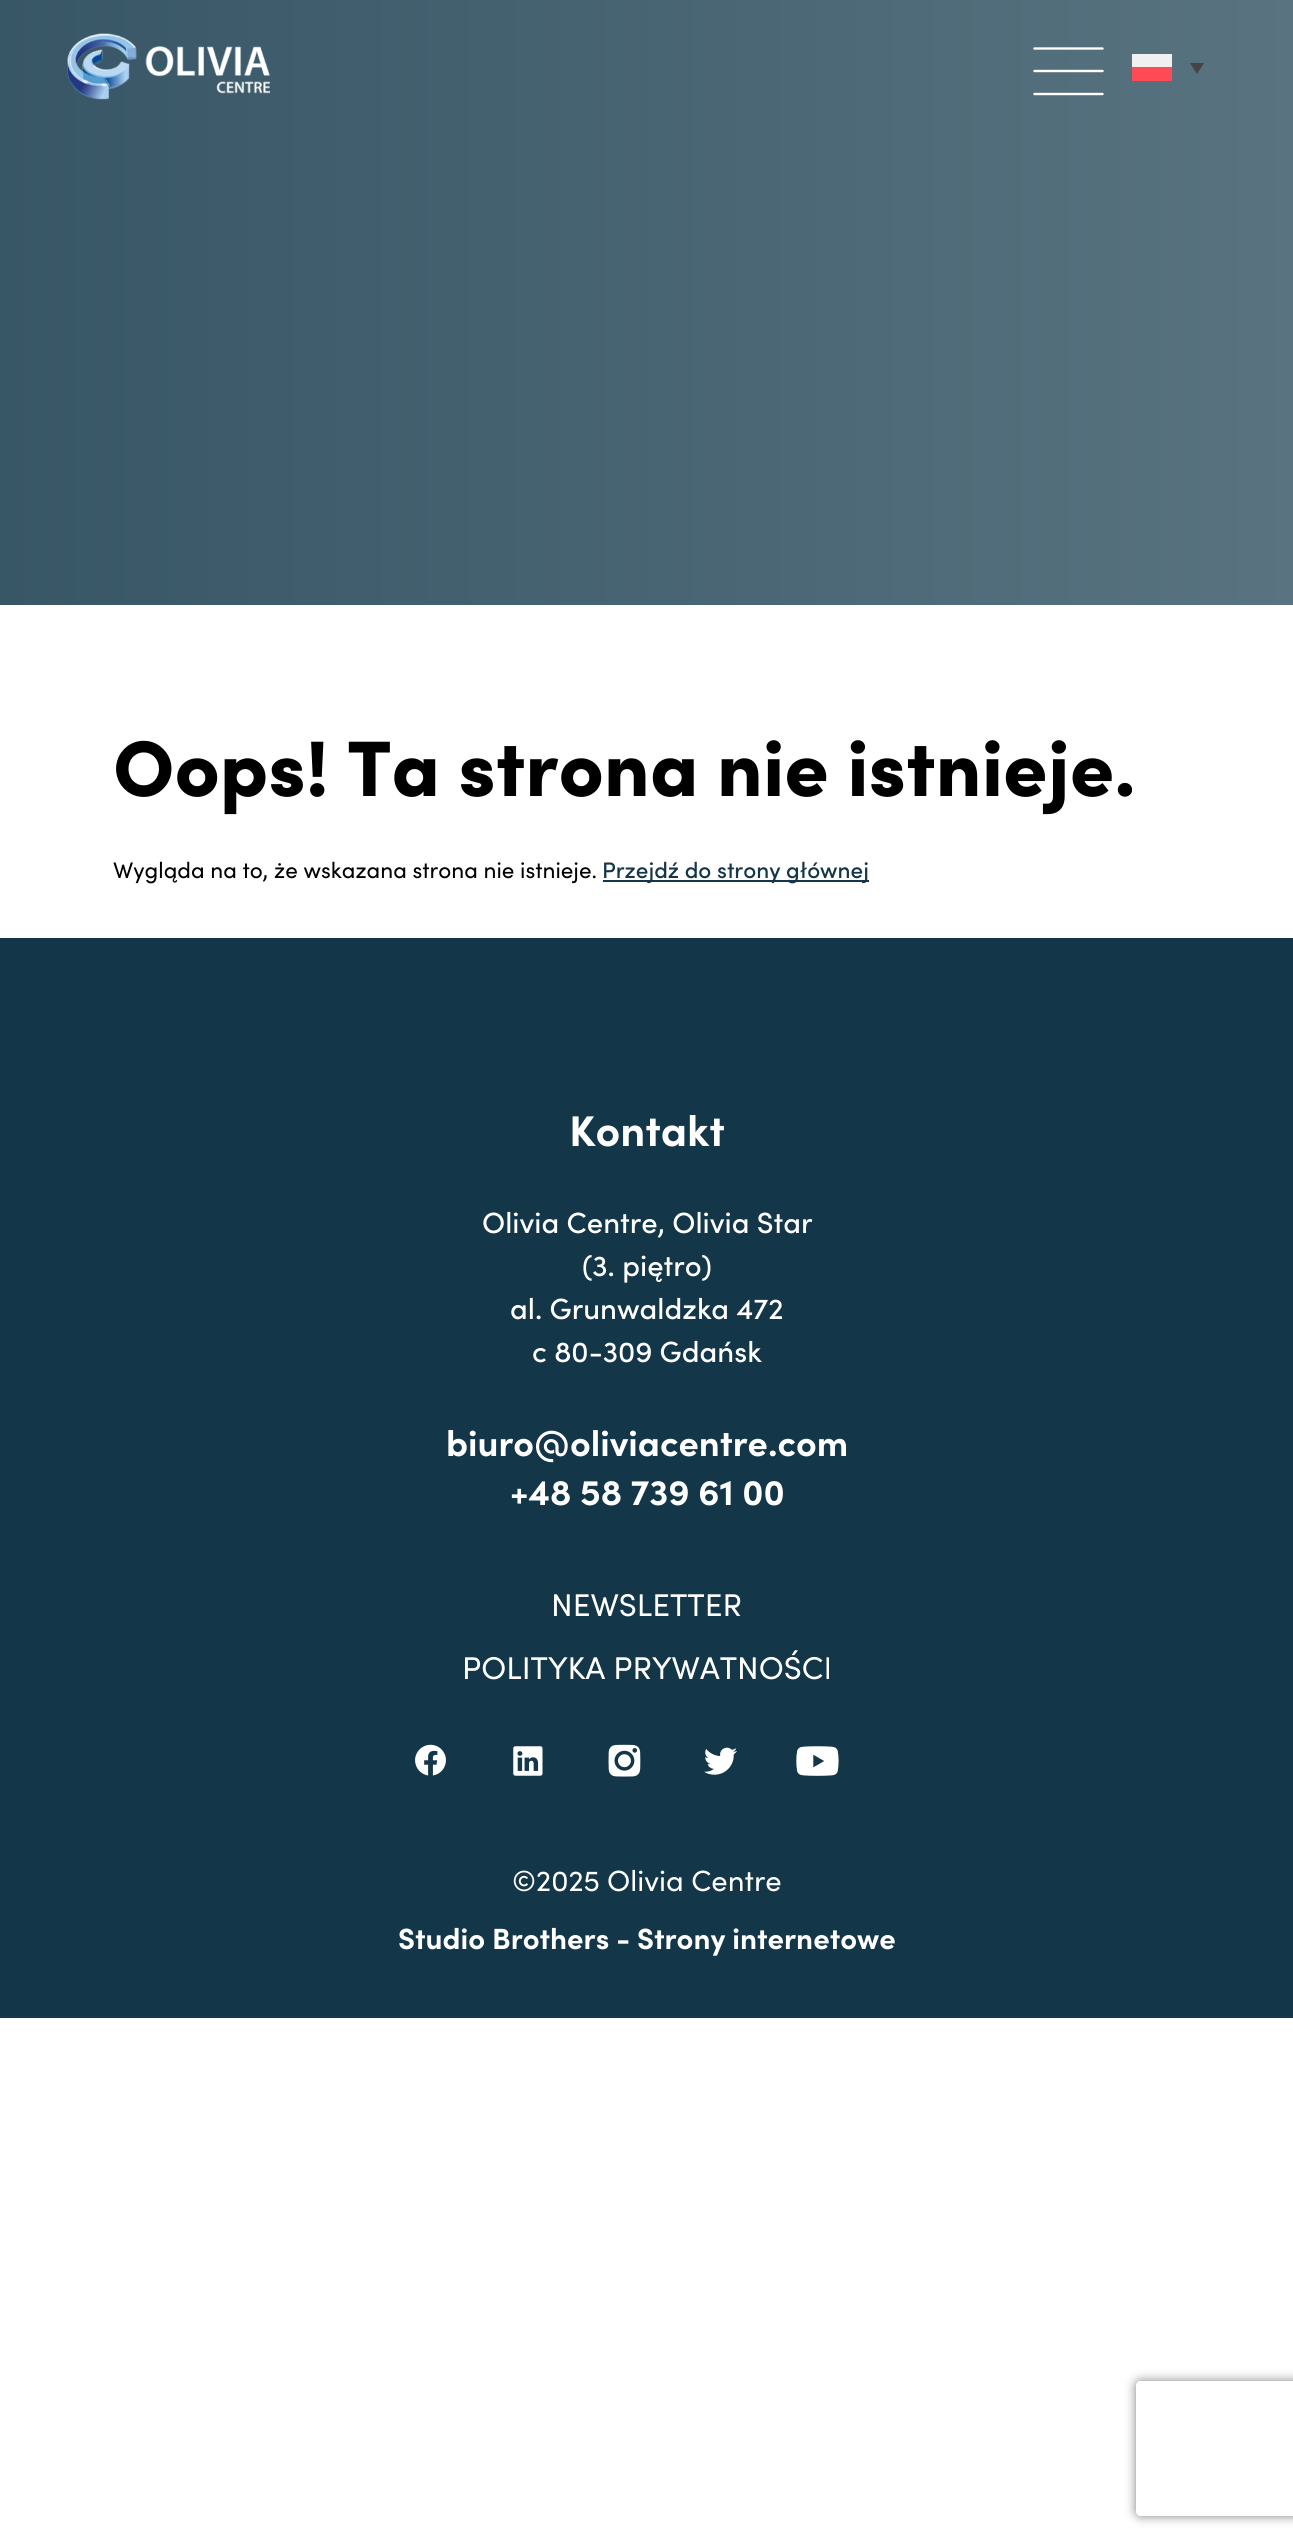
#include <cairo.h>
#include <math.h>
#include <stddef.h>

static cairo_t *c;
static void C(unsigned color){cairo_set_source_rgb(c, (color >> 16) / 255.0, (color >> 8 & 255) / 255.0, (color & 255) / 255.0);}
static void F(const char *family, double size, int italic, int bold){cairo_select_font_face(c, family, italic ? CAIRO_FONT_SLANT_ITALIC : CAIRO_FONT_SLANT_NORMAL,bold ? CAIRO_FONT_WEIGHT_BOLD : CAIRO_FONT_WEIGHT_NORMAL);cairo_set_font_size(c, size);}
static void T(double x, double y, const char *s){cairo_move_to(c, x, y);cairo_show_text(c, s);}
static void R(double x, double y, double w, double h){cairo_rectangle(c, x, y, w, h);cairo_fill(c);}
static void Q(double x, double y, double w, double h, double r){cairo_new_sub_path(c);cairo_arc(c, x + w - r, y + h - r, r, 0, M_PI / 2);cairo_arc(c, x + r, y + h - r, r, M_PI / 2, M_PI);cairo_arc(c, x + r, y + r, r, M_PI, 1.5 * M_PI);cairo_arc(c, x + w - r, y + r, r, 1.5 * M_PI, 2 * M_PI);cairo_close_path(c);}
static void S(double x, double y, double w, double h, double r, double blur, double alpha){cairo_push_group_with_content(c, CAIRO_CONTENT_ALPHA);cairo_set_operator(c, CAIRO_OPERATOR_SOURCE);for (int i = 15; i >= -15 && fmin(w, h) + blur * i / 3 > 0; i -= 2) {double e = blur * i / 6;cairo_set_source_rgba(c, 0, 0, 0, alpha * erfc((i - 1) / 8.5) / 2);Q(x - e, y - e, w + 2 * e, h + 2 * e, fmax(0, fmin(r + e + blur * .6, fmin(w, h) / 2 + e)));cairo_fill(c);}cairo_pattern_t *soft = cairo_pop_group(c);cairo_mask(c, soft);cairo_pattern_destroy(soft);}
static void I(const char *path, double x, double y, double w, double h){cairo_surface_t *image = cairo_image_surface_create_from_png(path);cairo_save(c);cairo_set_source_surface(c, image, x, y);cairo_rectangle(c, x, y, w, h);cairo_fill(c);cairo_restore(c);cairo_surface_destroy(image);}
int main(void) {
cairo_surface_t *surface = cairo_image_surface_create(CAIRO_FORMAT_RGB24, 1293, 2547);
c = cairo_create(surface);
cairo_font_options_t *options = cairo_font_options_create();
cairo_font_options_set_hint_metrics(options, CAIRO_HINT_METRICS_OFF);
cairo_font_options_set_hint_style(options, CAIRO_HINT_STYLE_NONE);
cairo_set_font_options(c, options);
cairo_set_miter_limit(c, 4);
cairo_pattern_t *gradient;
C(0xffffff);
cairo_paint(c);
gradient = cairo_pattern_create_linear(0,303,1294,303);
cairo_pattern_add_color_stop_rgba(gradient,0,0.216,0.337,0.4,1);
cairo_pattern_add_color_stop_rgba(gradient,1,0.349,0.451,0.502,1);
cairo_set_source(c,gradient);
cairo_pattern_destroy(gradient);
R(0,0,1293,605);
I("1.png",67,33,203,67);
cairo_new_path(c);
cairo_move_to(c,1034.5,48.5);
cairo_line_to(c,1102.5,48.5);
C(0xffffff);
cairo_set_line_width(c,2.4);
cairo_set_line_cap(c,CAIRO_LINE_CAP_ROUND);
cairo_set_line_join(c,CAIRO_LINE_JOIN_ROUND);
cairo_stroke(c);
cairo_new_path(c);
cairo_move_to(c,1034.5,71);
cairo_line_to(c,1102.5,71);
cairo_stroke(c);
cairo_new_path(c);
cairo_move_to(c,1034.5,94);
cairo_line_to(c,1102.5,94);
cairo_stroke(c);
C(0xf0f0f0);
R(1132,54,40,13);
C(0xff4b55);
R(1132,67,40,14);
C(0x444444);
cairo_new_path(c);
cairo_move_to(c,1190,63);
cairo_line_to(c,1204,63);
cairo_line_to(c,1197,74);
cairo_close_path(c);
cairo_fill(c);
F("Sofia Black",78.75,0,0);
C(0x000000);
T(113,796,"Oops! Ta strona nie istnieje.");
F("Sofia",22.5,0,0);
T(113,878,"Wygląda na to, że wskazana strona nie istnieje.");
C(0x133649);
R(603,880,266,2);
F("Sofia Medium",22.5,0,0);
T(602,878,"Przejdź do strony głównej");
R(0,938,1293,1080);
F("Sofia",43,0,1);
C(0xffffff);
T(569,1146,"Kontakt");
F("Sofia Medium",29.25,0,0);
T(482,1233,"Olivia Centre, Olivia Star");
T(582,1276,"(3. piętro)");
T(510,1319,"al. Grunwaldzka 472");
T(532,1362,"c 80-309 Gdańsk");
F("Sofia",36,0,1);
T(446,1456,"biuro@oliviacentre.com");
T(510,1505,"+48 58 739 61 00");
F("Sofia",31.5,0,0);
T(551,1616,"NEWSLETTER");
T(462,1679,"POLITYKA PRYWATNOŚCI");
I("2.png",415,1744,31,32);
I("3.png",513,1746,30,30);
I("4.png",608,1744,33,33);
I("5.png",704,1747,33,28);
I("6.png",796,1746,43,30);
F("Sofia",29.25,0,0);
T(512,1891,"©2025 Olivia Centre");
F("Sofia",29.25,0,1);
T(398,1949,"Studio Brothers - Strony internetowe");
cairo_save(c);
cairo_set_fill_rule(c,CAIRO_FILL_RULE_EVEN_ODD);
cairo_new_path(c);
cairo_move_to(c,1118,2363);
cairo_line_to(c,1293,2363);
cairo_line_to(c,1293,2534);
cairo_line_to(c,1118,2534);
cairo_close_path(c);
cairo_move_to(c,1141,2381);
cairo_line_to(c,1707,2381);
cairo_curve_to(c,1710,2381,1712,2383,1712,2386);
cairo_line_to(c,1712,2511);
cairo_curve_to(c,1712,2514,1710,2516,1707,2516);
cairo_line_to(c,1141,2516);
cairo_curve_to(c,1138,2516,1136,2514,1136,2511);
cairo_line_to(c,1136,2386);
cairo_curve_to(c,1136,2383,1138,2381,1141,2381);
cairo_close_path(c);
cairo_clip(c);
C(0x808080);
S(1136,2381,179,135,5,5.5,1);
cairo_restore(c);
cairo_surface_write_to_png(surface, "o.png");
cairo_font_options_destroy(options);
cairo_destroy(c);
cairo_surface_destroy(surface);
return 0;
}
